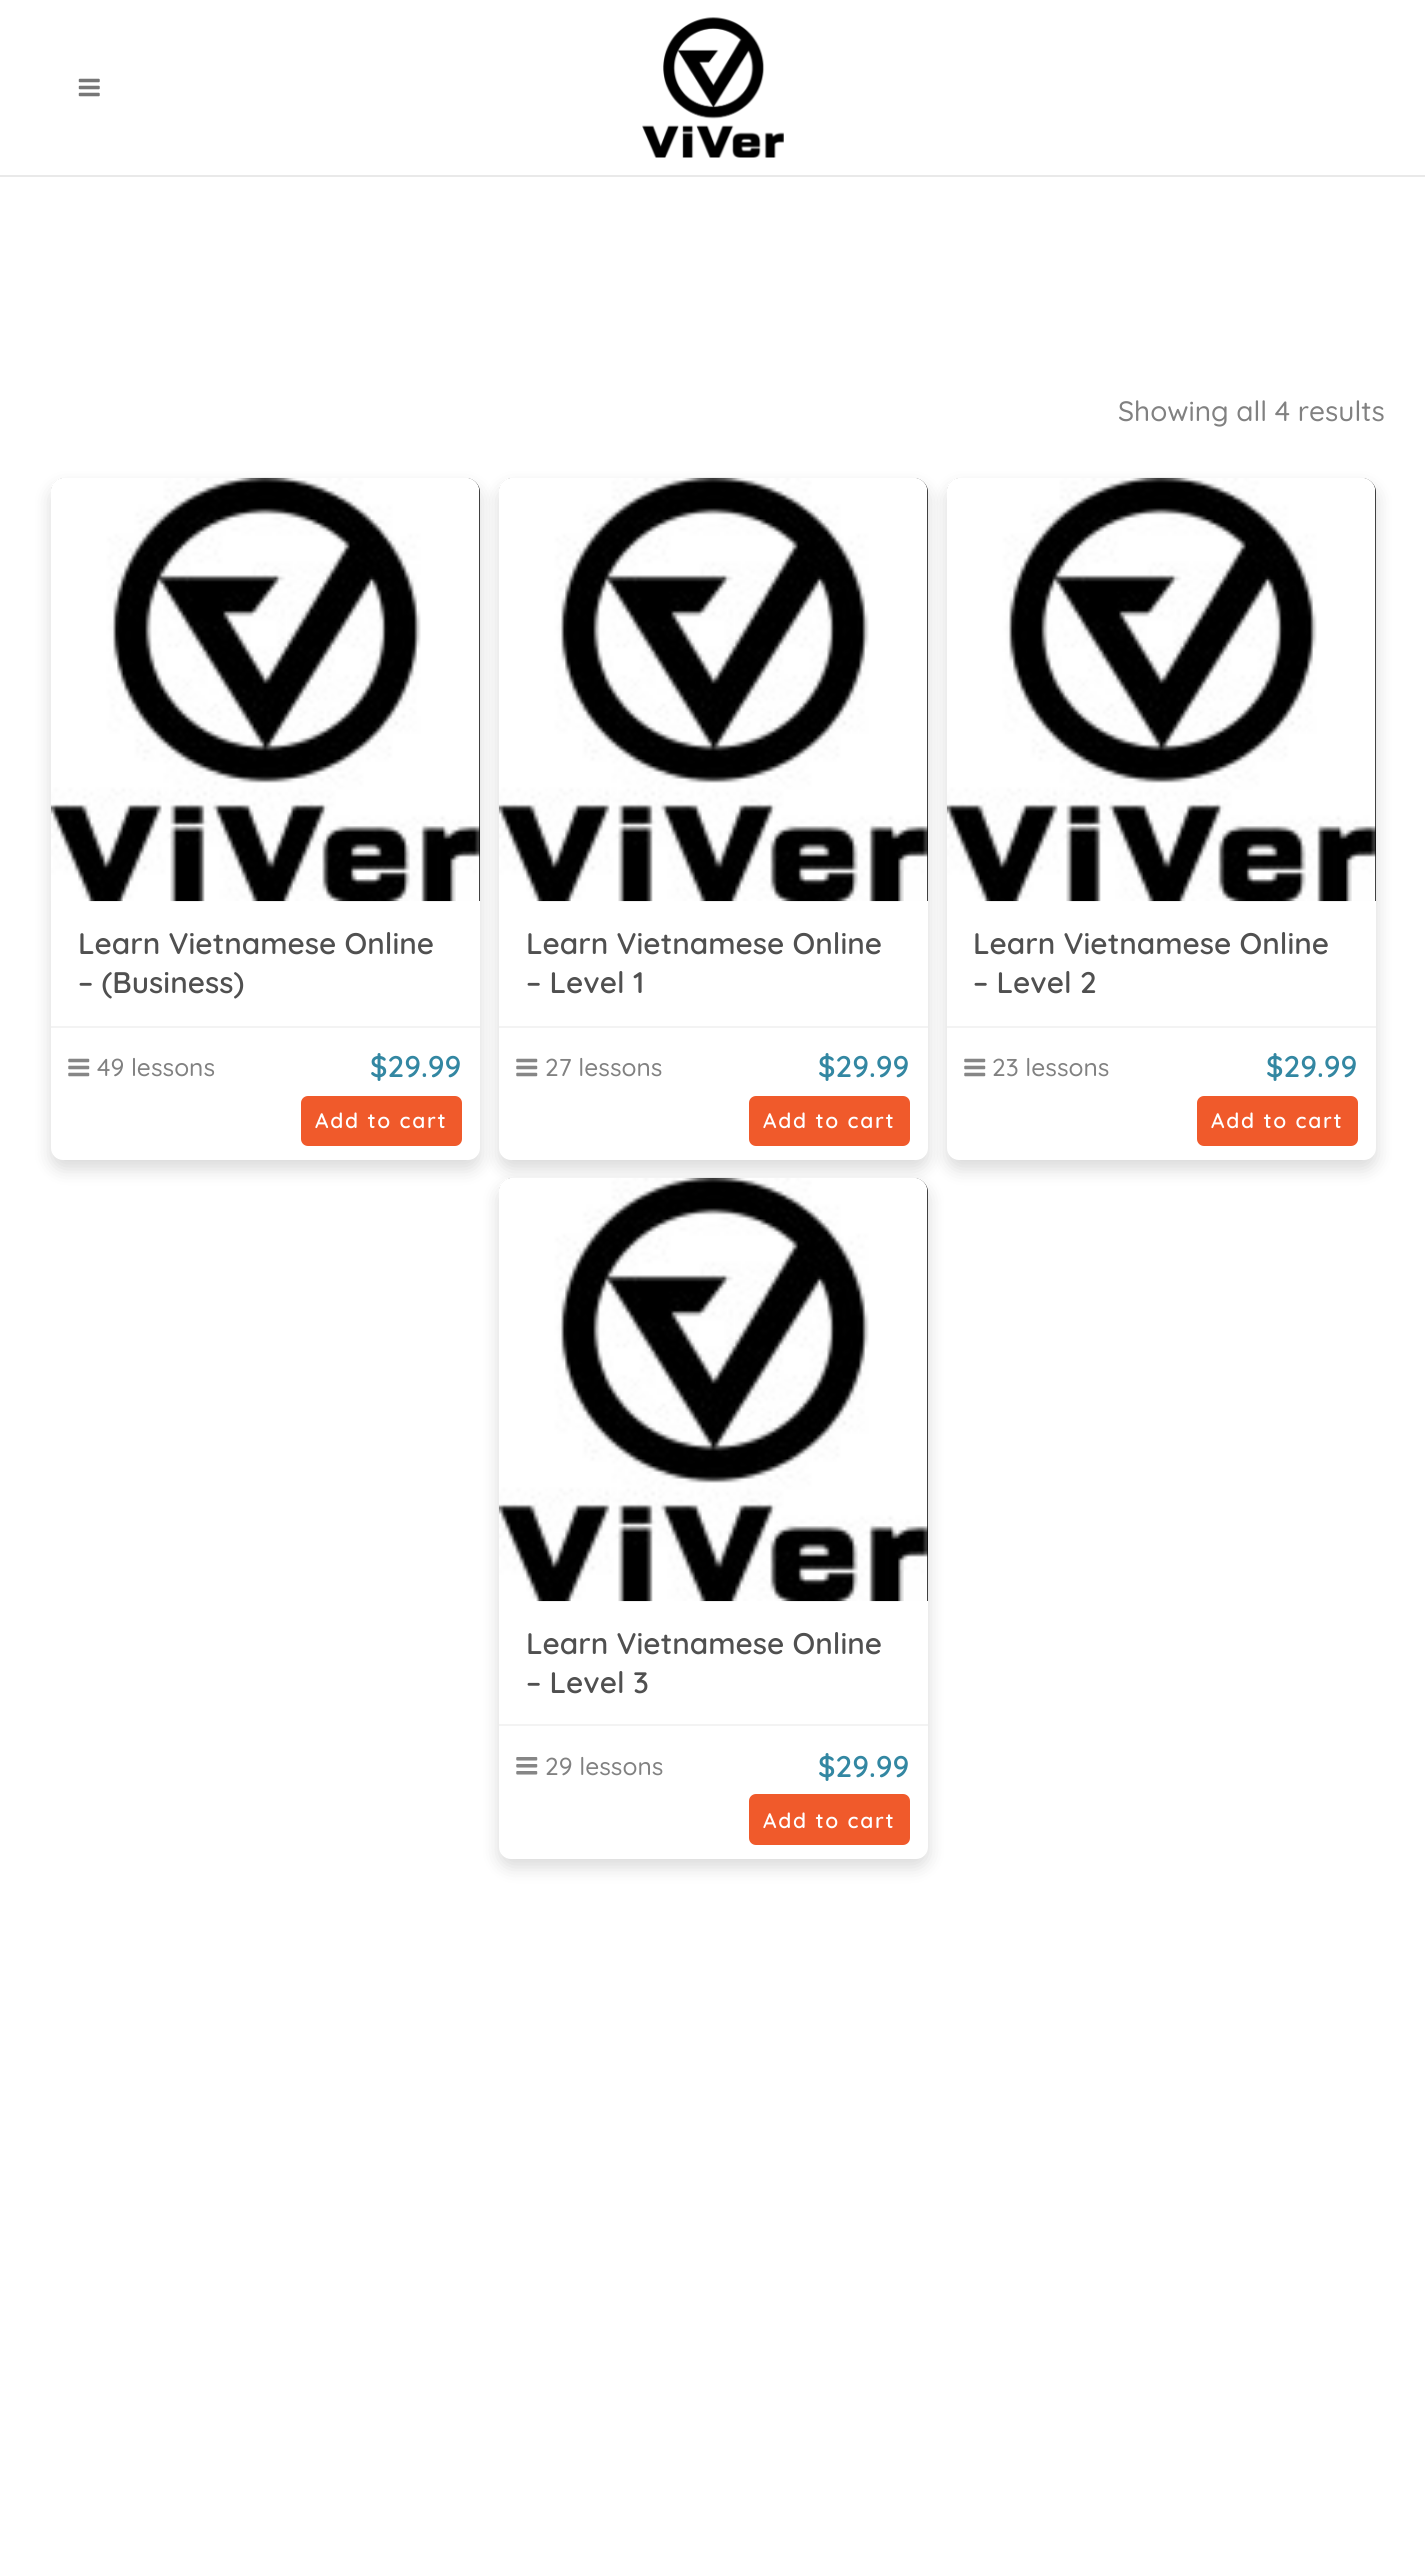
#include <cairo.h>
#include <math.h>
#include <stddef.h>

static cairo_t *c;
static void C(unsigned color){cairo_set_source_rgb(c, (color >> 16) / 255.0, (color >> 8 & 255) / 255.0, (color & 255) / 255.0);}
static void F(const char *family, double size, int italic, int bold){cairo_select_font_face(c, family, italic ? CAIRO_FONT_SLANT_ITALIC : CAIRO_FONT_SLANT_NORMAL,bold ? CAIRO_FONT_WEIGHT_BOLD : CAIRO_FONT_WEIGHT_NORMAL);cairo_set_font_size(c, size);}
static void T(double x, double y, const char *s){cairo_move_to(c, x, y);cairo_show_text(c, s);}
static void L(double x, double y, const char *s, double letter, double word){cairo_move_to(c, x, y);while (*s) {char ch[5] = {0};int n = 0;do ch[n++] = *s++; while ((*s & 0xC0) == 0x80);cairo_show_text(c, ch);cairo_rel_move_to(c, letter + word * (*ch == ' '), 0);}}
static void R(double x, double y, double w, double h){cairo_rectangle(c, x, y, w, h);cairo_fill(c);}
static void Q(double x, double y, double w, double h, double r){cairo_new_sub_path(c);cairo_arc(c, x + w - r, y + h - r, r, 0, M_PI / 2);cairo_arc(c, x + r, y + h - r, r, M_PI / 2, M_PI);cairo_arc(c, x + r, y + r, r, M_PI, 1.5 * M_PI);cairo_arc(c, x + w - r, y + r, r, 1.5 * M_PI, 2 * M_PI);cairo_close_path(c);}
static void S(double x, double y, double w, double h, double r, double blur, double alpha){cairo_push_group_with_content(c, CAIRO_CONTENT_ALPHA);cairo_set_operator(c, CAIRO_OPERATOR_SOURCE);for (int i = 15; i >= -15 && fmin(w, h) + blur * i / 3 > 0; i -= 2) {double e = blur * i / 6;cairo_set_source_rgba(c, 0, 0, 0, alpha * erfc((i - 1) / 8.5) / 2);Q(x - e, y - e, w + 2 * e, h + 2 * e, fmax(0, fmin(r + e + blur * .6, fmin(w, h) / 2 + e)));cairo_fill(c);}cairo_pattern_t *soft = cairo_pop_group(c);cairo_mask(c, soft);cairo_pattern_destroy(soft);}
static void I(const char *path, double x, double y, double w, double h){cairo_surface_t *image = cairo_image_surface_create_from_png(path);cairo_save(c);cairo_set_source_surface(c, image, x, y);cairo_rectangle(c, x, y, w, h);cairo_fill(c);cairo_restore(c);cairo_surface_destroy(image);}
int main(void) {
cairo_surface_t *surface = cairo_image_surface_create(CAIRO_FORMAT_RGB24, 1425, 2554);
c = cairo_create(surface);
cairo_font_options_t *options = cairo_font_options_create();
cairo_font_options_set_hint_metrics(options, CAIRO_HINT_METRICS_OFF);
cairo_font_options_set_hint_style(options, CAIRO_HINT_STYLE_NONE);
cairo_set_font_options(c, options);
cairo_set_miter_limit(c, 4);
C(0xffffff);
cairo_paint(c);
C(0xe9e9e9);
R(0,175,1425,2);
I("1.png",78,78,22,19);
I("2.png",642,17,142,141);
F("Quicksand Medium",28,0,0);
C(0x818181);
T(1118,421,"Showing all 4 results");
C(0x000000);
S(51,487,429,682,12,9,.15);
C(0xffffff);
Q(51,478,429,682,12);
cairo_fill(c);
C(0x000000);
S(499,487,429,682,12,9,.15);
C(0x000000);
cairo_new_path(c);
cairo_move_to(c,65,478);
cairo_line_to(c,466,478);
cairo_curve_to(c,473.5,478,480,484.5,480,492);
cairo_line_to(c,480,901);
cairo_line_to(c,51,901);
cairo_line_to(c,51,492);
cairo_curve_to(c,51,484.5,57.5,478,65,478);
cairo_close_path(c);
cairo_fill(c);
I("3.png",50,477,430,425);
F("Quicksand SemiBold",29.75,0,0);
C(0x505050);
T(78,954,"Learn Vietnamese Online");
T(78,993,"– (Business)");
C(0xf3f3f3);
R(51,1026,429,2);
I("4.png",68,1058,22,19);
F("Quicksand Medium",24.5,0,0);
C(0x818181);
T(97,1076,"49 lessons");
F("Quicksand SemiBold",29.75,0,0);
C(0x3387a2);
T(370,1077,"$29.99");
C(0xf05a2b);
Q(303,1098,157,46,5);
cairo_fill_preserve(c);
cairo_set_line_width(c,4);
cairo_stroke(c);
F("Quicksand SemiBold",21,0,0);
C(0xffffff);
L(315,1128,"Add to cart",1.75,0);
Q(499,478,429,682,12);
cairo_fill(c);
C(0x000000);
S(947,487,429,682,12,9,.15);
C(0x000000);
cairo_new_path(c);
cairo_move_to(c,513,478);
cairo_line_to(c,914,478);
cairo_curve_to(c,921.5,478,928,484.5,928,492);
cairo_line_to(c,928,901);
cairo_line_to(c,499,901);
cairo_line_to(c,499,492);
cairo_curve_to(c,499,484.5,505.5,478,513,478);
cairo_close_path(c);
cairo_fill(c);
I("5.png",498,477,430,425);
F("Quicksand SemiBold",29.75,0,0);
C(0x505050);
T(526,954,"Learn Vietnamese Online");
T(526,993,"– Level 1");
C(0xf3f3f3);
R(499,1026,429,2);
I("4.png",516,1058,22,19);
F("Quicksand Medium",24.5,0,0);
C(0x818181);
T(545,1076,"27 lessons");
F("Quicksand SemiBold",29.75,0,0);
C(0x3387a2);
T(818,1077,"$29.99");
C(0xf05a2b);
Q(751,1098,157,46,5);
cairo_fill_preserve(c);
cairo_stroke(c);
F("Quicksand SemiBold",21,0,0);
C(0xffffff);
L(763,1128,"Add to cart",1.75,0);
Q(947,478,429,682,12);
cairo_fill(c);
C(0x000000);
cairo_new_path(c);
cairo_move_to(c,961,478);
cairo_line_to(c,1362,478);
cairo_curve_to(c,1369.5,478,1376,484.5,1376,492);
cairo_line_to(c,1376,901);
cairo_line_to(c,947,901);
cairo_line_to(c,947,492);
cairo_curve_to(c,947,484.5,953.5,478,961,478);
cairo_close_path(c);
cairo_fill(c);
I("6.png",946,477,430,425);
F("Quicksand SemiBold",29.75,0,0);
C(0x505050);
T(973,954,"Learn Vietnamese Online");
T(973,993,"– Level 2");
C(0xf3f3f3);
R(947,1026,429,2);
I("4.png",964,1058,22,19);
F("Quicksand Medium",24.5,0,0);
C(0x818181);
T(992,1076,"23 lessons");
F("Quicksand SemiBold",29.75,0,0);
C(0x3387a2);
T(1266,1077,"$29.99");
C(0xf05a2b);
Q(1199,1098,157,46,5);
cairo_fill_preserve(c);
cairo_stroke(c);
F("Quicksand SemiBold",21,0,0);
C(0xffffff);
L(1211,1128,"Add to cart",1.75,0);
C(0x000000);
S(499,1187,429,680,12,9,.15);
C(0xffffff);
Q(499,1178,429,681,12);
cairo_fill(c);
C(0x000000);
cairo_new_path(c);
cairo_move_to(c,513,1178);
cairo_line_to(c,914,1178);
cairo_curve_to(c,921.5,1178,928,1184.5,928,1192);
cairo_line_to(c,928,1601);
cairo_line_to(c,499,1601);
cairo_line_to(c,499,1192);
cairo_curve_to(c,499,1184.5,505.5,1178,513,1178);
cairo_close_path(c);
cairo_fill(c);
I("7.png",498,1177,430,425);
F("Quicksand SemiBold",29.75,0,0);
C(0x505050);
T(526,1654,"Learn Vietnamese Online");
T(526,1693,"– Level 3");
C(0xf3f3f3);
R(499,1724,429,2);
I("8.png",516,1757,22,18);
F("Quicksand Medium",24.5,0,0);
C(0x818181);
T(545,1775,"29 lessons");
F("Quicksand SemiBold",29.75,0,0);
C(0x3387a2);
T(818,1777,"$29.99");
C(0xf05a2b);
Q(751,1796,157,47,5);
cairo_fill_preserve(c);
cairo_stroke(c);
F("Quicksand SemiBold",21,0,0);
C(0xffffff);
L(763,1828,"Add to cart",1.75,0);
cairo_surface_write_to_png(surface, "o.png");
cairo_font_options_destroy(options);
cairo_destroy(c);
cairo_surface_destroy(surface);
return 0;
}
